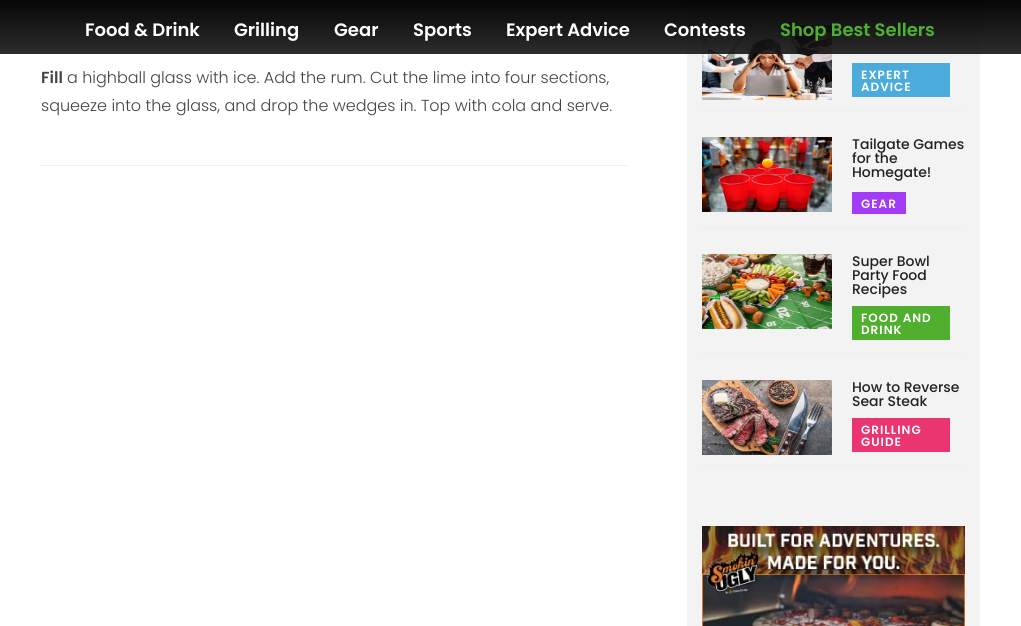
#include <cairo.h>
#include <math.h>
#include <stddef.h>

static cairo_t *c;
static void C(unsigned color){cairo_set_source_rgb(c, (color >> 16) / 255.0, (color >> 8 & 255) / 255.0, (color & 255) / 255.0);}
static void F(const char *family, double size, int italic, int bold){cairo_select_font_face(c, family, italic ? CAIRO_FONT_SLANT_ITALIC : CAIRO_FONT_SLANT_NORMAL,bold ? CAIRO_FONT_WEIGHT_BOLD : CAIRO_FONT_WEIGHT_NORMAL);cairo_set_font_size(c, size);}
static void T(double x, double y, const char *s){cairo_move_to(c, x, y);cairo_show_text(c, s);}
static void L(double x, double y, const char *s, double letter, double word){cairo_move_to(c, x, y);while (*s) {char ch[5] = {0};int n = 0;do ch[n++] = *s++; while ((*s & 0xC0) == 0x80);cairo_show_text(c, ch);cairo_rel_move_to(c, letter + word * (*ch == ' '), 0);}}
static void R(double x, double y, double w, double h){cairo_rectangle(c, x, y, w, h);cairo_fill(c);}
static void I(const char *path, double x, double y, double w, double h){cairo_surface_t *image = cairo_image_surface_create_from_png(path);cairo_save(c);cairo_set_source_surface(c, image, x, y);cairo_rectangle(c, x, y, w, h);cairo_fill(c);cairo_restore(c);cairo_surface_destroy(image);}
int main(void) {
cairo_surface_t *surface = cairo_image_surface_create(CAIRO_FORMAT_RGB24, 1021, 626);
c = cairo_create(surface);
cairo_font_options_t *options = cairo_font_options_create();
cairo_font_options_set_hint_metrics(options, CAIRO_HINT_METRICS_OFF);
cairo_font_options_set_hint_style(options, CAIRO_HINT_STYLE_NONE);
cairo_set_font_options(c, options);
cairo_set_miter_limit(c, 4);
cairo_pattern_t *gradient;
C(0xffffff);
cairo_paint(c);
C(0xf3f3f3);
R(687,0,293,626);
I("1.png",702,25,130,75);
cairo_set_source_rgba(c,0.086,0.086,0.086,0.9);
R(0,0,1021,54);
gradient = cairo_pattern_create_linear(511,54,511,0);
cairo_pattern_add_color_stop_rgba(gradient,0,0,0,0,0);
cairo_pattern_add_color_stop_rgba(gradient,1,0,0,0,.86);
cairo_set_source(c,gradient);
cairo_pattern_destroy(gradient);
R(0,0,1021,50);
F("Poppins SemiBold",18,0,0);
C(0xffffff);
T(85,36,"Food & Drink");
T(234,36,"Grilling");
T(334,36,"Gear");
T(413,36,"Sports");
T(506,36,"Expert Advice");
T(664,36,"Contests");
C(0x50af33);
T(780,36,"Shop Best Sellers");
F("Poppins SemiBold",16,0,0);
C(0x444444);
T(41,83,"Fill");
F("Poppins Light",16,0,0);
T(67,83,"a highball glass with ice. Add the rum. Cut the lime into four sections,");
T(41,111,"squeeze into the glass, and drop the wedges in. Top with cola and serve.");
C(0xeeeeee);
R(41,165,586,1);
R(702,110,263,1);
C(0x4bacdb);
R(852,63,98,34);
F("Poppins SemiBold",12,0,0);
C(0xffffff);
L(861,79,"EXPERT",1,0);
L(861,91,"ADVICE",1,0);
C(0xeeeeee);
R(702,227,263,1);
I("2.png",702,137,130,75);
F("Poppins Medium",14,0,0);
C(0x222222);
T(852,149,"Tailgate Games");
T(852,163,"for the");
T(852,177,"Homegate!");
C(0xa23af6);
R(852,192,54,22);
F("Poppins SemiBold",12,0,0);
C(0xffffff);
L(861,208,"GEAR",1,0);
C(0xeeeeee);
R(702,353,263,1);
I("3.png",702,254,130,75);
F("Poppins Medium",14,0,0);
C(0x222222);
T(852,266,"Super Bowl");
T(852,280,"Party Food");
T(852,294,"Recipes");
C(0x50af2e);
R(852,306,98,34);
F("Poppins SemiBold",12,0,0);
C(0xffffff);
L(861,322,"FOOD AND",1,0);
L(861,334,"DRINK",1,0);
C(0xeeeeee);
R(702,465,263,1);
I("4.png",702,380,130,75);
F("Poppins Medium",14,0,0);
C(0x222222);
T(852,392,"How to Reverse");
T(852,406,"Sear Steak");
C(0xeb3570);
R(852,418,98,34);
F("Poppins SemiBold",12,0,0);
C(0xffffff);
L(861,434,"GRILLING",1,0);
L(861,446,"GUIDE",1,0);
I("5.png",702,526,263,100);
cairo_surface_write_to_png(surface, "o.png");
cairo_font_options_destroy(options);
cairo_destroy(c);
cairo_surface_destroy(surface);
return 0;
}
